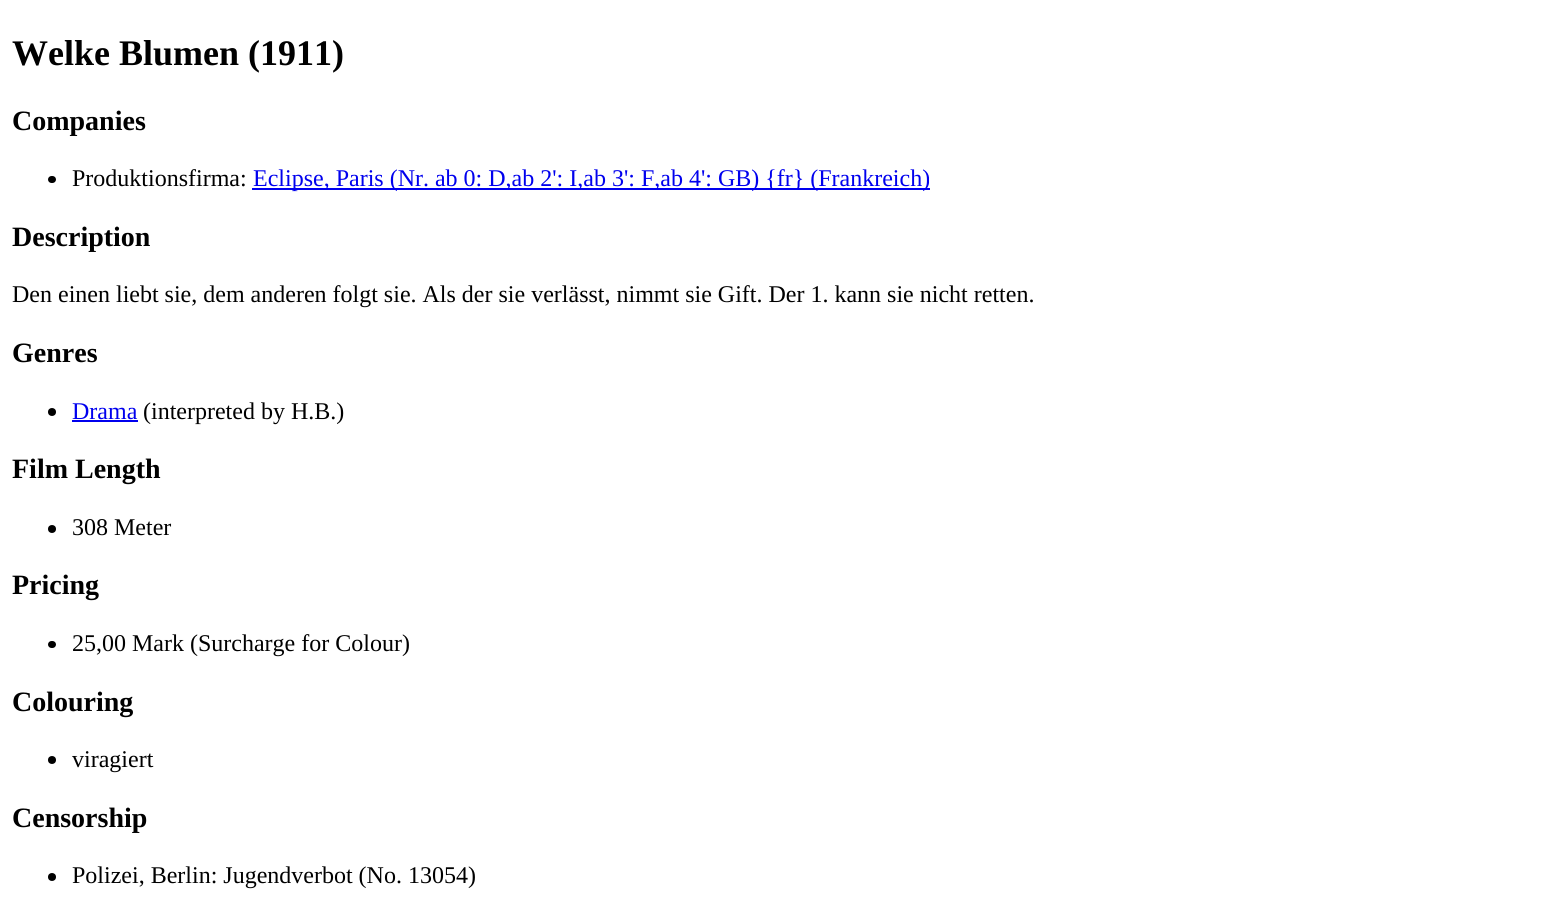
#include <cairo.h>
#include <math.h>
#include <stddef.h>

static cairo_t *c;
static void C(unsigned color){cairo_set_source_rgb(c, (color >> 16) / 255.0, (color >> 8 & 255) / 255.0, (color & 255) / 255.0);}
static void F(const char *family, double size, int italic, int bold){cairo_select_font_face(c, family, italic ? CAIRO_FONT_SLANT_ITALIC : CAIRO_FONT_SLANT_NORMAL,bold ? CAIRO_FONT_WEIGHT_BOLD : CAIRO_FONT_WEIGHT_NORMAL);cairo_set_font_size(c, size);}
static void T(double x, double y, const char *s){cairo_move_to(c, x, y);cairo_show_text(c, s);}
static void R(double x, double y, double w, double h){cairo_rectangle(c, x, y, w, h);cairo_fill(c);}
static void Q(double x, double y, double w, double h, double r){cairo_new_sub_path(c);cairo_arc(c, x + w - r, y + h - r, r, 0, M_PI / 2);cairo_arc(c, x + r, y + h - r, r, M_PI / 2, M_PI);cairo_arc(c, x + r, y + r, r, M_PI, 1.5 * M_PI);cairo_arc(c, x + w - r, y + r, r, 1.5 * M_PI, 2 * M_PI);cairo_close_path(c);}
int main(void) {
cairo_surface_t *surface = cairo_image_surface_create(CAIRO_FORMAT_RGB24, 1554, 909);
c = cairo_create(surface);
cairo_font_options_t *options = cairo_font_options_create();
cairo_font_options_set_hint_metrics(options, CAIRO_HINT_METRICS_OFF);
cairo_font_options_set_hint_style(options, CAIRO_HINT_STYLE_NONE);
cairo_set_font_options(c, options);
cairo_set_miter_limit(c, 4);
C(0xffffff);
cairo_paint(c);
F("Liberation Serif",36,0,1);
C(0x000000);
T(12,65,"Welke Blumen (1911)");
F("Liberation Serif",28,0,1);
T(12,130,"Companies");
Q(48,176,8,7,3.5);
cairo_fill(c);
F("Liberation Serif",24,0,0);
T(72,186,"Produktionsfirma:");
C(0x0000ee);
R(252,188,678,2);
T(253,186,"Eclipse, Paris (Nr. ab 0: D,ab 2': I,ab 3': F,ab 4': GB) {fr} (Frankreich)");
F("Liberation Serif",28,0,1);
C(0x000000);
T(12,246,"Description");
F("Liberation Serif",24,0,0);
T(12,302,"Den einen liebt sie, dem anderen folgt sie. Als der sie verlässt, nimmt sie Gift. Der 1. kann sie nicht retten.");
F("Liberation Serif",28,0,1);
T(12,362,"Genres");
cairo_new_path(c);
cairo_arc(c,52,412,4,0,2 * M_PI);
cairo_fill(c);
F("Liberation Serif",24,0,0);
C(0x0000ee);
T(72,419,"Drama");
R(72,420,66,2);
C(0x000000);
T(143,419,"(interpreted by H.B.)");
F("Liberation Serif",28,0,1);
T(12,478,"Film Length");
cairo_new_path(c);
cairo_arc(c,52,529,4,0,2 * M_PI);
cairo_fill(c);
F("Liberation Serif",24,0,0);
T(72,535,"308 Meter");
F("Liberation Serif",28,0,1);
T(12,594,"Pricing");
Q(48,641,8,7,3.5);
cairo_fill(c);
F("Liberation Serif",24,0,0);
T(72,651,"25,00 Mark (Surcharge for Colour)");
F("Liberation Serif",28,0,1);
T(12,711,"Colouring");
cairo_new_path(c);
cairo_arc(c,52,760,4,0,2 * M_PI);
cairo_fill(c);
F("Liberation Serif",24,0,0);
T(72,767,"viragiert");
F("Liberation Serif",28,0,1);
T(12,827,"Censorship");
cairo_new_path(c);
cairo_arc(c,52,877,4,0,2 * M_PI);
cairo_fill(c);
F("Liberation Serif",24,0,0);
T(72,883,"Polizei, Berlin: Jugendverbot (No. 13054)");
cairo_surface_write_to_png(surface, "o.png");
cairo_font_options_destroy(options);
cairo_destroy(c);
cairo_surface_destroy(surface);
return 0;
}
